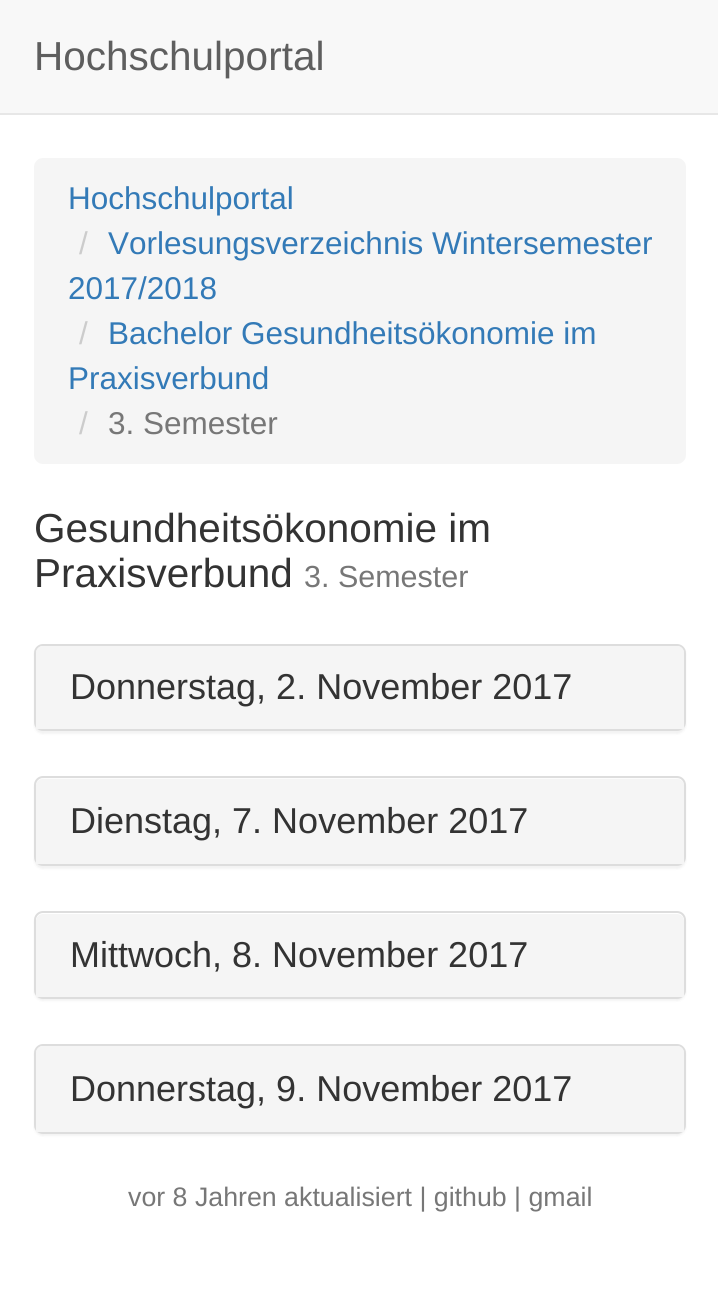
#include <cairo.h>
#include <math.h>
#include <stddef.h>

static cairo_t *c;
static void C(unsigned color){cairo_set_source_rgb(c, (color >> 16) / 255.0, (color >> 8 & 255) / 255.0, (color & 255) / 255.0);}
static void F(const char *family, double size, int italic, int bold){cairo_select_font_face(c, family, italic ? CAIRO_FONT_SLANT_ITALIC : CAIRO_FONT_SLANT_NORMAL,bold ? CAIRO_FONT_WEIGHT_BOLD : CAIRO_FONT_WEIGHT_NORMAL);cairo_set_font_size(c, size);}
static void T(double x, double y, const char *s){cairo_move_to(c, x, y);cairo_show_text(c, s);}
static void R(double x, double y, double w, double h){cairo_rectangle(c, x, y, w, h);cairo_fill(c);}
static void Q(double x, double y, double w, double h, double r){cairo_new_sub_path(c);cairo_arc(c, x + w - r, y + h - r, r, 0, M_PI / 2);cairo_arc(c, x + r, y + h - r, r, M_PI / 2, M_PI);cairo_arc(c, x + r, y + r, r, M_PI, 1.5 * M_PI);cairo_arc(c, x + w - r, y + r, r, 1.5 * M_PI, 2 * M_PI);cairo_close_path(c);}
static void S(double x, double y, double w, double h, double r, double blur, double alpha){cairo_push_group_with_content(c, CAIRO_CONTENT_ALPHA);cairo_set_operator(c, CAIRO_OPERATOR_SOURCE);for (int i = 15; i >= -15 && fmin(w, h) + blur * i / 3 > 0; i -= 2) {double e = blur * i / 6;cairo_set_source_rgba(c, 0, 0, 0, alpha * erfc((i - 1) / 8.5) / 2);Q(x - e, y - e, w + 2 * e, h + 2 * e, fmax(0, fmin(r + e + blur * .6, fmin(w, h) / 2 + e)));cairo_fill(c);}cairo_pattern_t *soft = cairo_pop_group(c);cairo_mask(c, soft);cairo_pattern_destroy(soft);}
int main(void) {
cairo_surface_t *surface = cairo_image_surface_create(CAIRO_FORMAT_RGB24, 718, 1290);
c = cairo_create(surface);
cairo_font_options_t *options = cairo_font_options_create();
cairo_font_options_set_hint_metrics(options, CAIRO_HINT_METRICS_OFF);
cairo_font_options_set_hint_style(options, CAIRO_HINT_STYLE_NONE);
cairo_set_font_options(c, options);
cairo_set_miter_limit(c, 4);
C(0xffffff);
cairo_paint(c);
C(0xf8f8f8);
R(0,0,718,113);
C(0xe7e7e7);
R(0,113,718,2);
F("Liberation Sans",40.5,0,0);
C(0x5e5e5e);
T(34,70,"Hochschulportal");
C(0xf5f5f5);
Q(34,158,652,306,9);
cairo_fill(c);
F("Liberation Sans",31.5,0,0);
C(0x337ab7);
T(68,209,"Hochschulportal");
C(0xcccccc);
T(79,254,"/");
C(0x337ab7);
T(108,254,"Vorlesungsverzeichnis Wintersemester");
T(68,299,"2017/2018");
C(0xcccccc);
T(79,344,"/");
C(0x337ab7);
T(108,344,"Bachelor Gesundheitsökonomie im");
T(68,389,"Praxisverbund");
C(0xcccccc);
T(79,434,"/");
C(0x777777);
T(108,434,"3. Semester");
F("Liberation Sans",40.5,0,0);
C(0x333333);
T(34,542,"Gesundheitsökonomie im");
T(34,587,"Praxisverbund");
F("Liberation Sans",30.5,0,0);
C(0x777777);
T(304,587,"3. Semester");
C(0x000000);
S(34,646,652,88,9,1,.05);
Q(35,645,650,85,8);
C(0xdddddd);
cairo_stroke(c);
C(0xf5f5f5);
cairo_new_path(c);
cairo_move_to(c,43,646);
cairo_line_to(c,677,646);
cairo_curve_to(c,681,646,684,649,684,653);
cairo_line_to(c,684,729);
cairo_line_to(c,36,729);
cairo_line_to(c,36,653);
cairo_curve_to(c,36,649,39,646,43,646);
cairo_close_path(c);
cairo_fill(c);
F("Liberation Sans",36,0,0);
C(0x333333);
T(70,699,"Donnerstag, 2. November 2017");
C(0x000000);
S(34,779,652,90,9,1,.05);
Q(35,777,650,88,8);
C(0xdddddd);
cairo_stroke(c);
C(0xf5f5f5);
cairo_new_path(c);
cairo_move_to(c,43,779);
cairo_line_to(c,677,779);
cairo_curve_to(c,681,779,684,782,684,786);
cairo_line_to(c,684,864);
cairo_line_to(c,36,864);
cairo_line_to(c,36,786);
cairo_curve_to(c,36,782,39,779,43,779);
cairo_close_path(c);
cairo_fill(c);
C(0x333333);
T(70,833,"Dienstag, 7. November 2017");
C(0x000000);
S(34,914,652,87,9,1,.05);
C(0xffffff);
Q(35,912,650,86,8);
cairo_fill_preserve(c);
C(0xdddddd);
cairo_stroke(c);
C(0xf5f5f5);
cairo_new_path(c);
cairo_move_to(c,43,914);
cairo_line_to(c,677,914);
cairo_curve_to(c,681,914,684,917,684,921);
cairo_line_to(c,684,997);
cairo_line_to(c,36,997);
cairo_line_to(c,36,921);
cairo_curve_to(c,36,917,39,914,43,914);
cairo_close_path(c);
cairo_fill(c);
C(0x333333);
T(70,967,"Mittwoch, 8. November 2017");
C(0x000000);
S(34,1046,652,90,9,1,.05);
Q(35,1045,650,88,8);
C(0xdddddd);
cairo_stroke(c);
C(0xf5f5f5);
cairo_new_path(c);
cairo_move_to(c,43,1046);
cairo_line_to(c,677,1046);
cairo_curve_to(c,681,1046,684,1049,684,1053);
cairo_line_to(c,684,1132);
cairo_line_to(c,36,1132);
cairo_line_to(c,36,1053);
cairo_curve_to(c,36,1049,39,1046,43,1046);
cairo_close_path(c);
cairo_fill(c);
C(0x333333);
T(70,1101,"Donnerstag, 9. November 2017");
F("Liberation Sans",26.75,0,0);
C(0x777777);
T(128,1206,"vor 8 Jahren aktualisiert | github | gmail");
cairo_surface_write_to_png(surface, "o.png");
cairo_font_options_destroy(options);
cairo_destroy(c);
cairo_surface_destroy(surface);
return 0;
}
